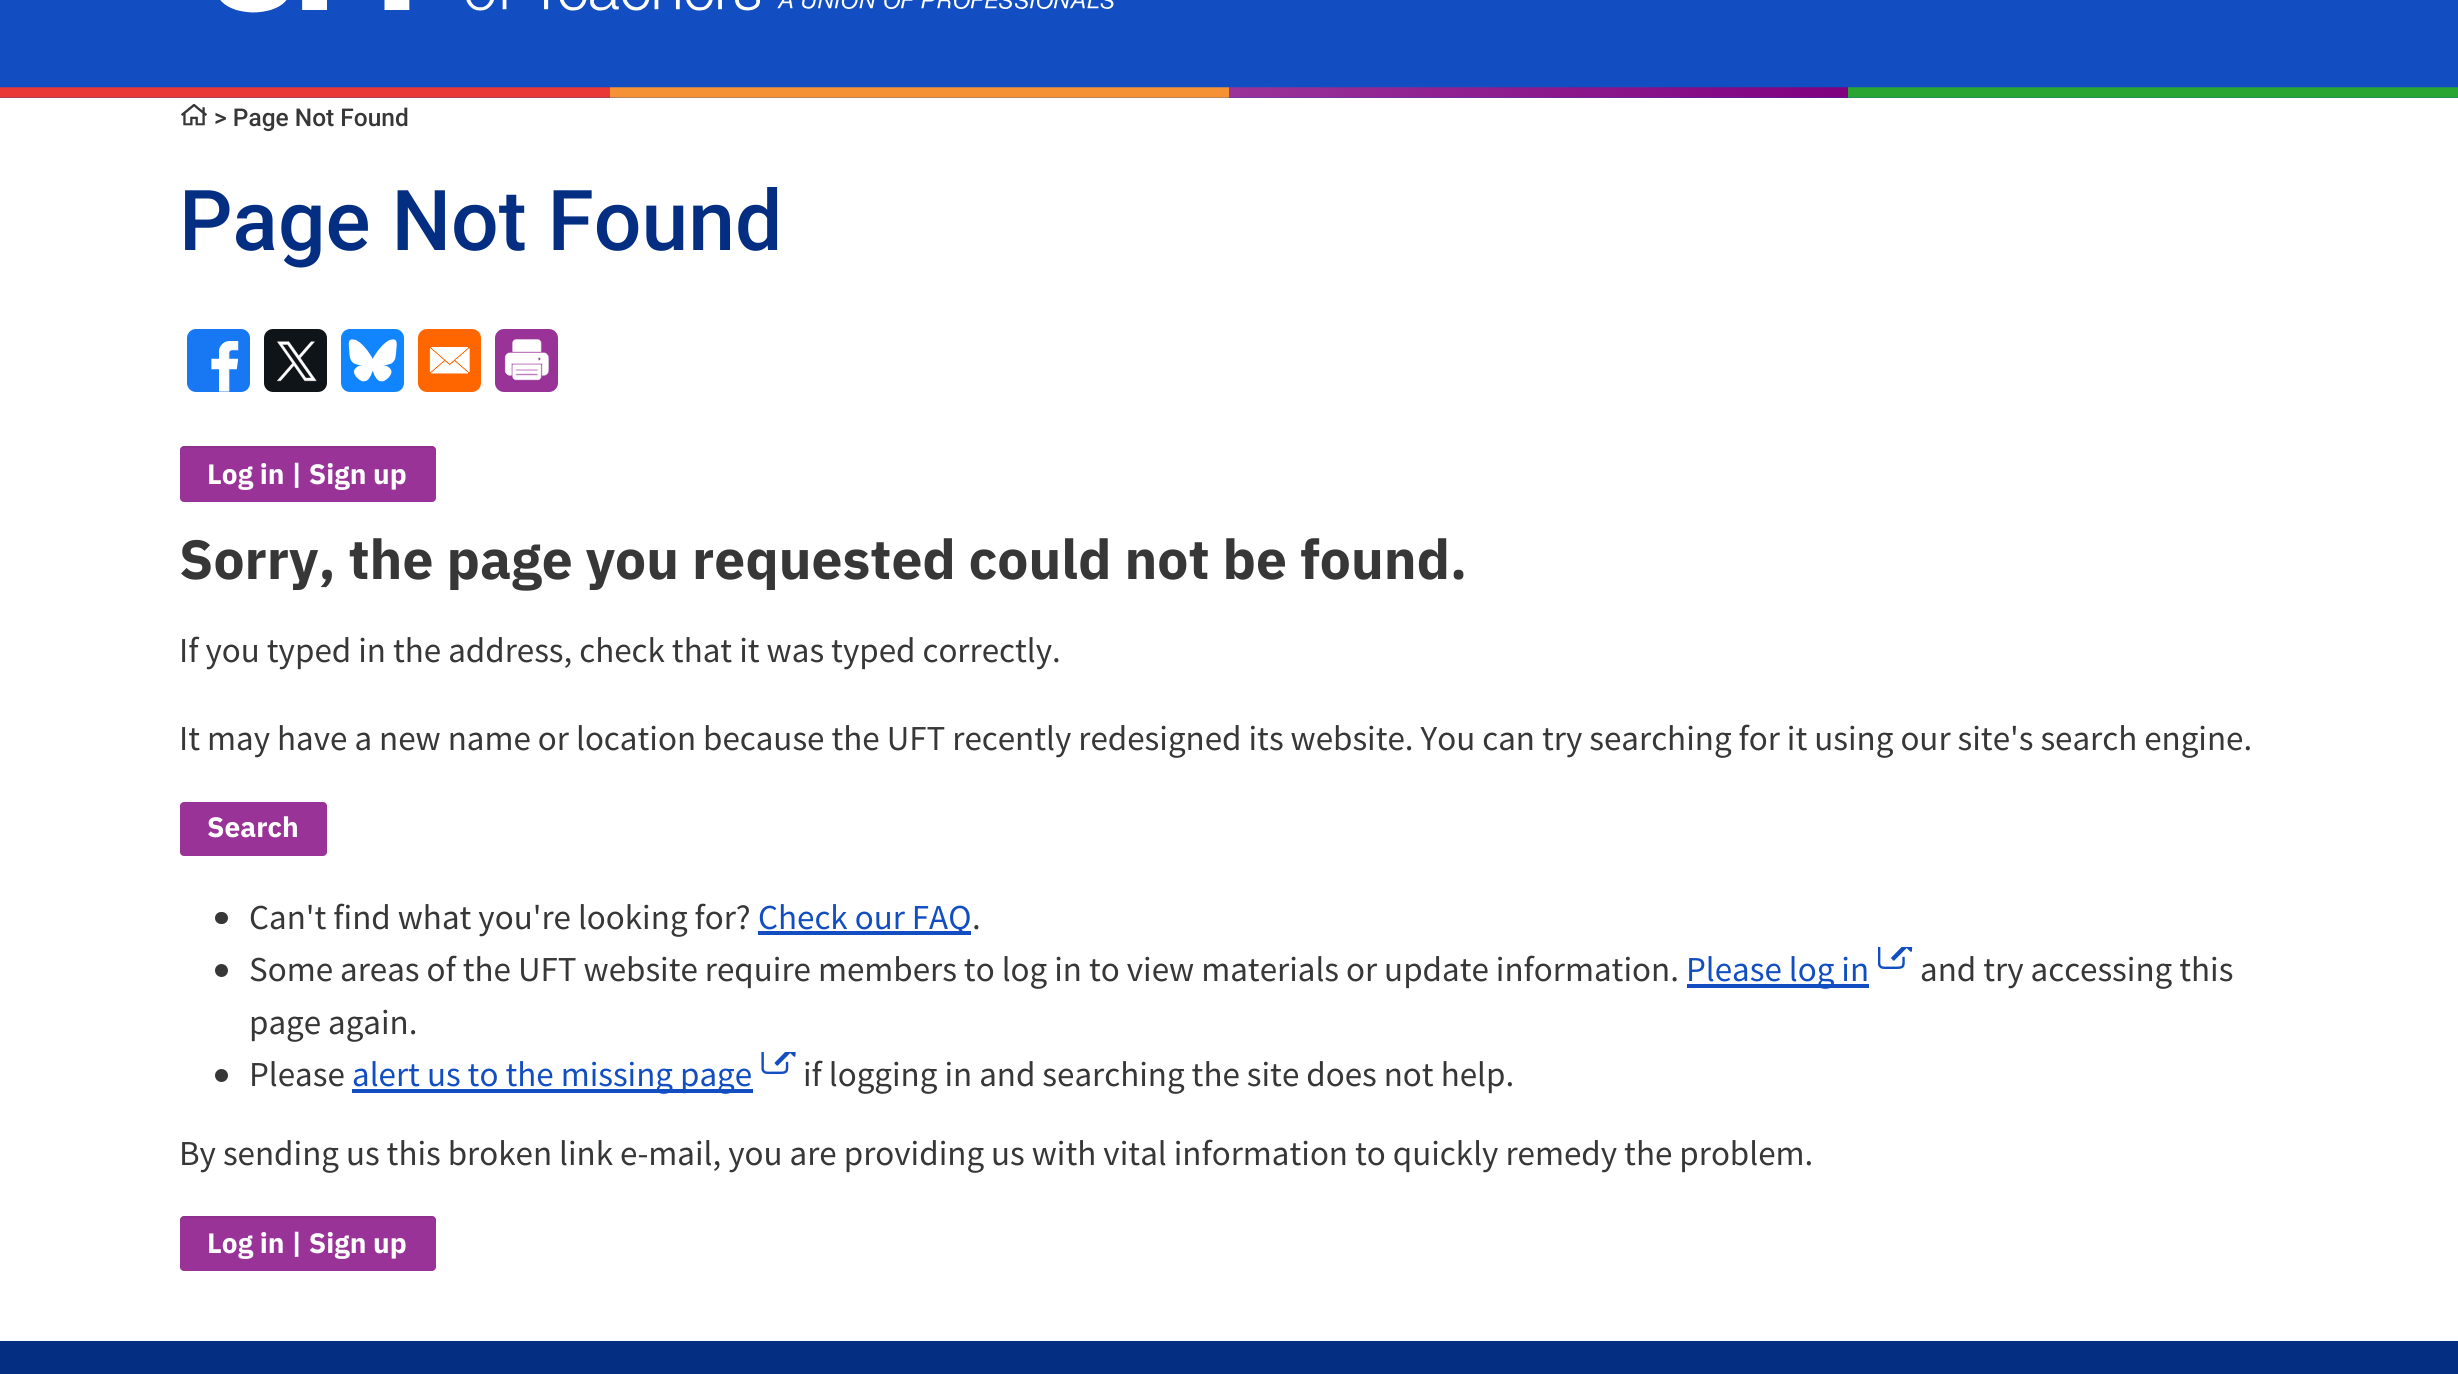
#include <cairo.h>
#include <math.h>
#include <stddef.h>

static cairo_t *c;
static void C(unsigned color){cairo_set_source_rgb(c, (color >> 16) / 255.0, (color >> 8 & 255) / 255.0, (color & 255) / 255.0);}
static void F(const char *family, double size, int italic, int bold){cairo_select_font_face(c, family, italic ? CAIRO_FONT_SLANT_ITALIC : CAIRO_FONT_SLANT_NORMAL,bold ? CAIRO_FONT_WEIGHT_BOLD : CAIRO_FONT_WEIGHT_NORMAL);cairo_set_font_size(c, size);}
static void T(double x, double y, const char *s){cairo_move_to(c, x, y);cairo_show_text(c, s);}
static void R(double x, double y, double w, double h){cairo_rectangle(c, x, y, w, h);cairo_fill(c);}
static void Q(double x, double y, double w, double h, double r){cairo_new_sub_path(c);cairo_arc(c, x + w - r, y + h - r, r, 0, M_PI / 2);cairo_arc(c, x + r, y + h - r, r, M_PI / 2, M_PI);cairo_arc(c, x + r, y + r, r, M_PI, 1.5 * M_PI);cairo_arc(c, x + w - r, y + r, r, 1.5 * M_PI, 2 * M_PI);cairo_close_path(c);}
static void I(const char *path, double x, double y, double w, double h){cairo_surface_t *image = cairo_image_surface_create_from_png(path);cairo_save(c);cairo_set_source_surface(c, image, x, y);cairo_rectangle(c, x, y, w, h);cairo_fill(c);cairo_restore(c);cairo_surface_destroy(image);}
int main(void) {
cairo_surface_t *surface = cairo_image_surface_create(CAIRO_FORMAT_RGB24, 2458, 1374);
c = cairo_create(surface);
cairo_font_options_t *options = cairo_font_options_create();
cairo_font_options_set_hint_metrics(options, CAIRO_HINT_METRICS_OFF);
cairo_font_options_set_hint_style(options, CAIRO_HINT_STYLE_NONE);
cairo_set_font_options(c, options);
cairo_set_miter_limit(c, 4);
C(0xffffff);
cairo_paint(c);
C(0x124ec2);
R(0,0,2458,98);
I("1.png",0,87,2458,11);
I("2.png",220,0,894,13);
I("3.png",181,104,26,22);
F("Roboto Medium",24.5,0,0);
C(0x373737);
T(214,126,"> Page Not Found");
F("Roboto Medium",84,0,0);
C(0x032e82);
T(179,250,"Page Not Found");
C(0x1877f2);
Q(187,329,63,63,9);
cairo_fill(c);
I("4.png",211,341,28,51);
C(0x0f1419);
Q(264,329,63,63,9);
cairo_fill(c);
I("5.png",276,341,41,41);
C(0x1185fe);
Q(341,329,63,63,9);
cairo_fill(c);
I("6.png",348,339,49,43);
C(0xff6600);
Q(418,329,63,63,9);
cairo_fill(c);
I("7.png",429,347,41,27);
C(0x993398);
Q(495,329,63,63,9);
cairo_fill(c);
I("8.png",504,339,45,42);
Q(180,446,256,56,4);
cairo_fill(c);
cairo_set_source_rgba(c,0,0,0,0.07);
cairo_new_path(c);
cairo_move_to(c,184,448);
cairo_line_to(c,433,448);
cairo_line_to(c,435,450);
cairo_line_to(c,436,452);
cairo_line_to(c,436,450);
cairo_curve_to(c,436,448,434,446,432,446);
cairo_line_to(c,184,446);
cairo_curve_to(c,182,446,180,448,180,450);
cairo_line_to(c,180,452);
cairo_curve_to(c,180,450,182,448,184,448);
cairo_close_path(c);
cairo_fill(c);
F("IBM Plex Sans",28,0,1);
C(0xffffff);
T(207,484,"Log in | Sign up");
F("IBM Plex Sans",55.1,0,1);
C(0x373737);
T(179,579,"Sorry, the page you requested could not be found.");
F("Source Sans Pro",35,0,0);
T(179,662,"If you typed in the address, check that it was typed correctly.");
T(179,750,"It may have a new name or location because the UFT recently redesigned its website. You can try searching for it using our site's search engine.");
C(0x993398);
Q(180,802,147,54,4);
cairo_fill(c);
F("IBM Plex Sans",28,0,1);
C(0xffffff);
T(207,837,"Search");
C(0x373737);
Q(215,912,13,12,6);
cairo_fill(c);
F("Source Sans Pro",35,0,0);
T(249,929,"Can't find what you're looking for?");
C(0x124ec2);
R(758,931,213,4);
T(758,929,"Check our FAQ");
C(0x373737);
T(972,929,".");
cairo_new_path(c);
cairo_arc(c,221.5,970.5,6.5,0,2 * M_PI);
cairo_fill(c);
T(249,981,"Some areas of the UFT website require members to log in to view materials or update information.");
C(0x124ec2);
R(1687,984,182,4);
T(1686,981,"Please log in");
I("9.png",1878,947,35,22);
C(0x373737);
T(1920,981,"and try accessing this");
T(249,1034,"page again.");
cairo_new_path(c);
cairo_arc(c,221.5,1075.5,6.5,0,2 * M_PI);
cairo_fill(c);
T(249,1086,"Please");
C(0x124ec2);
R(352,1089,401,4);
T(352,1086,"alert us to the missing page");
I("10.png",761,1052,35,22);
C(0x373737);
T(803,1086,"if logging in and searching the site does not help.");
T(179,1165,"By sending us this broken link e-mail, you are providing us with vital information to quickly remedy the problem.");
C(0x993398);
Q(180,1216,256,55,4);
cairo_fill(c);
cairo_set_source_rgba(c,0,0,0,0.07);
cairo_new_path(c);
cairo_move_to(c,184,1218);
cairo_line_to(c,433,1218);
cairo_line_to(c,435,1220);
cairo_line_to(c,436,1222);
cairo_line_to(c,436,1220);
cairo_curve_to(c,436,1218,434,1216,432,1216);
cairo_line_to(c,184,1216);
cairo_curve_to(c,182,1216,180,1218,180,1220);
cairo_line_to(c,180,1222);
cairo_curve_to(c,180,1220,182,1218,184,1218);
cairo_close_path(c);
cairo_fill(c);
F("IBM Plex Sans",28,0,1);
C(0xffffff);
T(207,1253,"Log in | Sign up");
C(0x032e82);
R(0,1341,2458,33);
cairo_surface_write_to_png(surface, "o.png");
cairo_font_options_destroy(options);
cairo_destroy(c);
cairo_surface_destroy(surface);
return 0;
}
